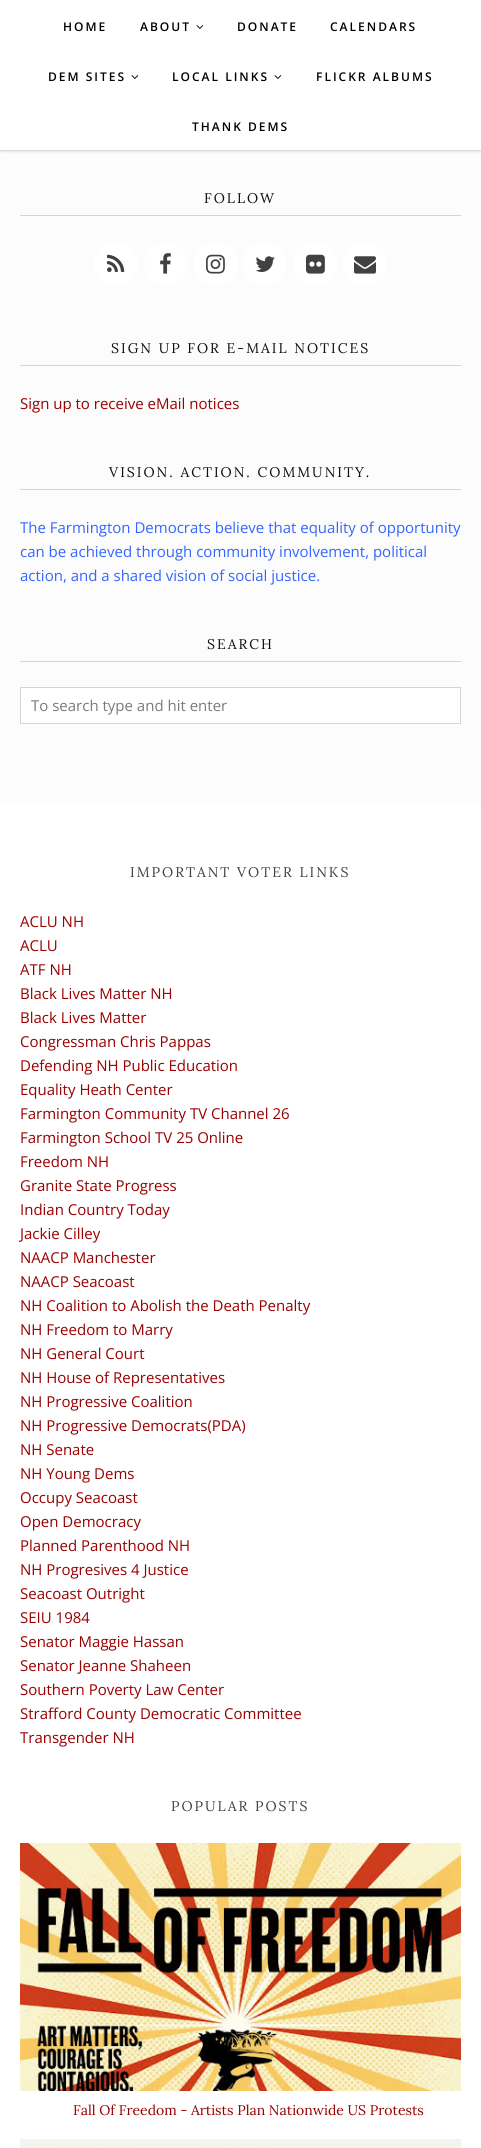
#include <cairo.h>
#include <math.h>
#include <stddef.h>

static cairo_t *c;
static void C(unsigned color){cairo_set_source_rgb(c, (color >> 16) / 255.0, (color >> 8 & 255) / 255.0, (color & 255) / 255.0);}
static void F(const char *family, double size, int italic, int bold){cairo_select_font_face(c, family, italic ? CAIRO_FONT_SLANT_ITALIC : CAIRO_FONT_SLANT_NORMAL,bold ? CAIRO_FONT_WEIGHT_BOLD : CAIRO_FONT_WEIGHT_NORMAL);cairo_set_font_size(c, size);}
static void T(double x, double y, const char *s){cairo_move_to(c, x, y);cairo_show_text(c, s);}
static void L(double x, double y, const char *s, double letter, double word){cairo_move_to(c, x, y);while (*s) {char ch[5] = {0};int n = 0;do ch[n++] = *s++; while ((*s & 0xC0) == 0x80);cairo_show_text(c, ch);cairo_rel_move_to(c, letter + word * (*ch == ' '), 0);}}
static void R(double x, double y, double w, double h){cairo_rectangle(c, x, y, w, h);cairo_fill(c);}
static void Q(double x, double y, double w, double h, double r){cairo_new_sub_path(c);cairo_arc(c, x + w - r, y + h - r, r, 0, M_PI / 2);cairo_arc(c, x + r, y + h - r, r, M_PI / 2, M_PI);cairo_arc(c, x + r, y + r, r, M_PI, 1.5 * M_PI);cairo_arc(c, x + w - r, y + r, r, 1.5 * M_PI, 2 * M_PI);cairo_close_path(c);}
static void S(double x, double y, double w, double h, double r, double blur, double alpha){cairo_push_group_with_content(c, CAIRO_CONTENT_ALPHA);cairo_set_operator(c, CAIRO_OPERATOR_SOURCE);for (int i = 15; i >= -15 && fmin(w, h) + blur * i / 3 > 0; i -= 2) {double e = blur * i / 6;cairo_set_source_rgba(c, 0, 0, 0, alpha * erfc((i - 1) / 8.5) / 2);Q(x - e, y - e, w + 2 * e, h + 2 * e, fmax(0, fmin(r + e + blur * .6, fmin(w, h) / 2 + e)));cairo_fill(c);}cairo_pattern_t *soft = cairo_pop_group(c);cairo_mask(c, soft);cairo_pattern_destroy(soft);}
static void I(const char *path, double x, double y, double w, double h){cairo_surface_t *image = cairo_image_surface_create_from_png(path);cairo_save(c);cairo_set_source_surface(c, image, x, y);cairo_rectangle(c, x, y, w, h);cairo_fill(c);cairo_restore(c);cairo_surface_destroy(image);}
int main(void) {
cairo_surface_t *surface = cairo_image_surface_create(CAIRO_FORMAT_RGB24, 481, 2148);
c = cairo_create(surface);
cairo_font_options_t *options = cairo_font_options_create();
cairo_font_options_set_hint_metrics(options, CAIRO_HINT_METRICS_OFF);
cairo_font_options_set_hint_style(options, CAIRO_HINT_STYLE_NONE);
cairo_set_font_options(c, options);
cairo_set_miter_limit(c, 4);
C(0xffffff);
cairo_paint(c);
C(0xfcfcfc);
R(0,150,481,654);
C(0x000000);
S(0,1,481,150,0,1.5,.2);
C(0xffffff);
R(0,0,481,150);
F("Open Sans SemiBold",12,0,0);
C(0x000000);
L(63,31,"HOME",2,0);
L(140,31,"ABOUT",2,0);
I("1.png",196,25,8,4);
L(237,31,"DONATE",2,0);
L(330,31,"CALENDARS",2,0);
L(48,81,"DEM SITES",2,0);
I("1.png",131,75,8,4);
L(172,81,"LOCAL LINKS",2,0);
I("1.png",274,75,8,4);
L(316,81,"FLICKR ALBUMS",2,0);
L(192,131,"THANK DEMS",2,0);
C(0xd5d5d5);
R(20,215,441,1);
F("Lora",14,0,0);
C(0x101010);
L(204,203,"FOLLOW",2,0);
C(0xffffff);
cairo_new_path(c);
cairo_arc(c,116,264,22,0,2 * M_PI);
cairo_fill(c);
I("2.png",107,254,18,18);
cairo_arc(c,166,264,22,0,2 * M_PI);
cairo_fill(c);
I("3.png",160,253,11,21);
cairo_arc(c,216,264,22,0,2 * M_PI);
cairo_fill(c);
I("4.png",206,254,19,20);
cairo_arc(c,265,264,22,0,2 * M_PI);
cairo_fill(c);
I("5.png",255,256,20,16);
cairo_arc(c,315,264,22,0,2 * M_PI);
cairo_fill(c);
I("6.png",306,254,19,20);
cairo_arc(c,365,264,22,0,2 * M_PI);
cairo_fill(c);
I("7.png",354,256,22,18);
C(0xd5d5d5);
R(20,365,441,1);
C(0x101010);
L(111,353,"SIGN UP FOR E-MAIL NOTICES",2,0);
F("Open Sans",15,0,0);
C(0x990000);
T(20,409,"Sign up to receive eMail notices");
C(0xd5d5d5);
R(20,489,441,1);
F("Lora",14,0,0);
C(0x101010);
L(109,477,"VISION. ACTION. COMMUNITY.",2,0);
F("Open Sans",15,0,0);
C(0x3366ff);
T(20,533,"The Farmington Democrats believe that equality of opportunity");
T(20,557,"can be achieved through community involvement, political");
T(20,581,"action, and a shared vision of social justice.");
C(0xd5d5d5);
R(20,661,441,1);
F("Lora",14,0,0);
C(0x101010);
L(207,649,"SEARCH",2,0);
C(0xffffff);
cairo_rectangle(c,20.5,687.5,440,36);
cairo_fill_preserve(c);
C(0xd5d5d5);
cairo_set_line_width(c,1);
cairo_stroke(c);
F("Open Sans",15,0,0);
C(0x7a7a7a);
T(31,711,"To search type and hit enter");
F("Lora",14,0,0);
C(0x414141);
L(130,877,"IMPORTANT VOTER LINKS",2,0);
F("Open Sans",15,0,0);
C(0x990000);
T(20,927,"ACLU NH");
T(20,951,"ACLU");
T(20,975,"ATF NH");
T(20,999,"Black Lives Matter NH");
T(20,1023,"Black Lives Matter");
T(20,1047,"Congressman Chris Pappas");
T(20,1071,"Defending NH Public Education");
T(20,1095,"Equality Heath Center");
T(20,1119,"Farmington Community TV Channel 26");
T(20,1143,"Farmington School TV 25 Online");
T(20,1167,"Freedom NH");
T(20,1191,"Granite State Progress");
T(20,1215,"Indian Country Today");
T(20,1239,"Jackie Cilley");
T(20,1263,"NAACP Manchester");
T(20,1287,"NAACP Seacoast");
T(20,1311,"NH Coalition to Abolish the Death Penalty");
T(20,1335,"NH Freedom to Marry");
T(20,1359,"NH General Court");
T(20,1383,"NH House of Representatives");
T(20,1407,"NH Progressive Coalition");
T(20,1431,"NH Progressive Democrats(PDA)");
T(20,1455,"NH Senate");
T(20,1479,"NH Young Dems");
T(20,1503,"Occupy Seacoast");
T(20,1527,"Open Democracy");
T(20,1551,"Planned Parenthood NH");
T(20,1575,"NH Progresives 4 Justice");
T(20,1599,"Seacoast Outright");
T(20,1623,"SEIU 1984");
T(20,1647,"Senator Maggie Hassan");
T(20,1671,"Senator Jeanne Shaheen");
T(20,1695,"Southern Poverty Law Center");
T(20,1719,"Strafford County Democratic Committee");
T(20,1743,"Transgender NH");
F("Lora",14,0,0);
C(0x414141);
L(171,1811,"POPULAR POSTS",2,0);
I("8.png",20,1843,441,248);
C(0x990000);
T(73,2115,"Fall Of Freedom - Artists Plan Nationwide US Protests");
I("9.png",20,2139,441,9);
cairo_surface_write_to_png(surface, "o.png");
cairo_font_options_destroy(options);
cairo_destroy(c);
cairo_surface_destroy(surface);
return 0;
}
